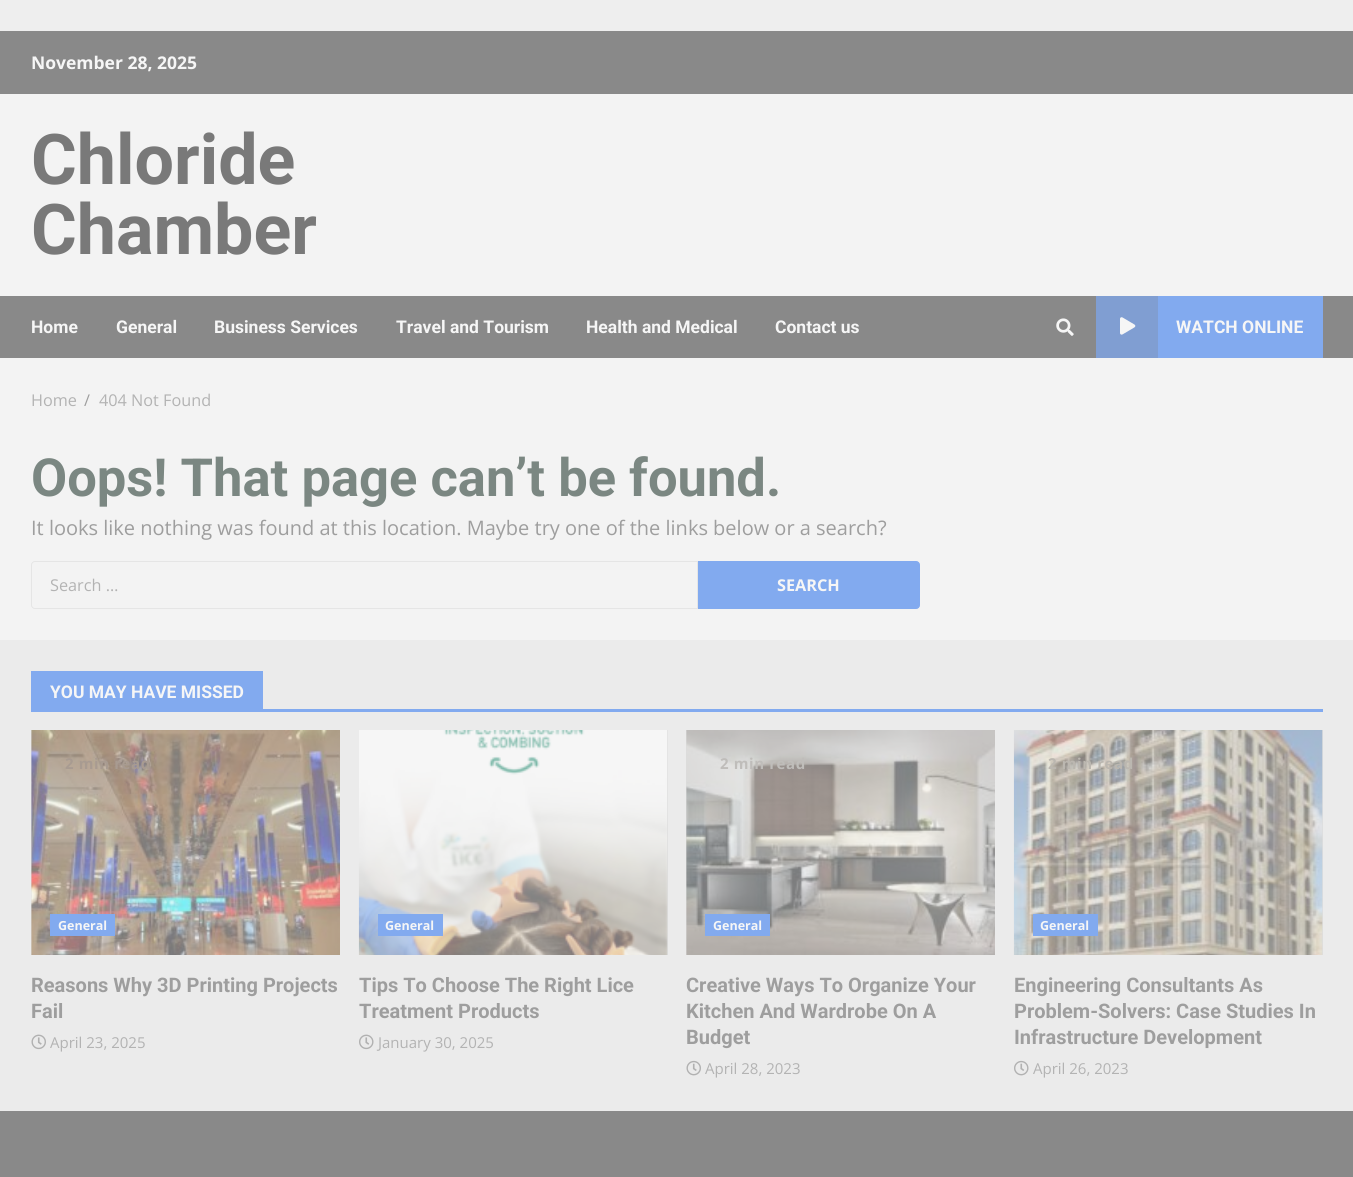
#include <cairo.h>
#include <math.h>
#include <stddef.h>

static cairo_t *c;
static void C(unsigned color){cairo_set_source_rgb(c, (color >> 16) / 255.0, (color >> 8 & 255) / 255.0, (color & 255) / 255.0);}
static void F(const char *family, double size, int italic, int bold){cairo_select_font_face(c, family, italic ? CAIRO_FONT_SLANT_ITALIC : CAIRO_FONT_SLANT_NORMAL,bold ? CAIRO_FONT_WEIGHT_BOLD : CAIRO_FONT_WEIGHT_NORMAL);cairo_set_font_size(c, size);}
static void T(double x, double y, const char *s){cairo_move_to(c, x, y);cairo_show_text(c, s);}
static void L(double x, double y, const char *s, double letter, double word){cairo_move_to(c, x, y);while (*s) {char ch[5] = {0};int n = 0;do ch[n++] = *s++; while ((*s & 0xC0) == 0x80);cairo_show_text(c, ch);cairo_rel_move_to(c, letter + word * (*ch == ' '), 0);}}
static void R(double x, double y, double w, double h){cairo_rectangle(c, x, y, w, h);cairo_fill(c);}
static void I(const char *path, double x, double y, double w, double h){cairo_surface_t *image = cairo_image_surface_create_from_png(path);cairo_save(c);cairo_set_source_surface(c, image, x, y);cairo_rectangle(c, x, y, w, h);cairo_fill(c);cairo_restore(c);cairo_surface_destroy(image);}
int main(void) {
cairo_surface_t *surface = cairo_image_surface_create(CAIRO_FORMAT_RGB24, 1353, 1177);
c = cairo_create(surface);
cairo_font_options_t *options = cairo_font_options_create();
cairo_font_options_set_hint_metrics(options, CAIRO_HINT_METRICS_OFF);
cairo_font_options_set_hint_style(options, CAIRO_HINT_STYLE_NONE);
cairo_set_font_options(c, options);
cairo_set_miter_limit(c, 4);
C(0xeeeeee);
cairo_paint(c);
C(0xf3f3f3);
R(0,94,1353,546);
C(0x898989);
R(0,31,1353,63);
F("Open Sans",17.5,0,1);
C(0xf6f6f6);
T(31,69,"November 28, 2025");
F("Roboto",70,0,1);
C(0x797979);
T(31,184,"Chloride");
T(31,254,"Chamber");
C(0x898989);
R(0,296,1353,62);
F("Roboto",17.5,0,1);
C(0xf6f6f6);
T(31,333,"Home");
T(116,333,"General");
T(214,333,"Business Services");
T(396,333,"Travel and Tourism");
T(586,333,"Health and Medical");
T(775,333,"Contact us");
I("1.png",1056,318,18,18);
C(0x82aaef);
R(1158,296,165,62);
C(0x809ed2);
R(1096,296,62,62);
I("2.png",1120,317,16,18);
C(0xf6f6f6);
T(1176,333,"WATCH ONLINE");
F("Open Sans",16.25,0,0);
C(0xb3b3b3);
T(31,406,"Home");
C(0x9e9e9e);
T(84,406,"/");
C(0xb3b3b3);
T(99,406,"404 Not Found");
F("Roboto",52.5,0,1);
C(0x7b8782);
T(31,496,"Oops! That page can’t be found.");
F("Open Sans",20,0,0);
C(0x9e9e9e);
T(31,535,"It looks like nothing was found at this location. Maybe try one of the links below or a search?");
cairo_new_path(c);
cairo_move_to(c,35,561.5);
cairo_line_to(c,697.5,561.5);
cairo_line_to(c,697.5,608.5);
cairo_line_to(c,35,608.5);
cairo_curve_to(c,33,608.5,31.5,607,31.5,605);
cairo_line_to(c,31.5,565);
cairo_curve_to(c,31.5,563,33,561.5,35,561.5);
cairo_close_path(c);
C(0xe5e5e5);
cairo_set_line_width(c,1);
cairo_stroke(c);
F("Open Sans",16.25,0,0);
C(0xb3b3b3);
T(50,591,"Search …");
C(0x82aaef);
cairo_new_path(c);
cairo_move_to(c,698.5,561.5);
cairo_line_to(c,916,561.5);
cairo_curve_to(c,918,561.5,919.5,563,919.5,565);
cairo_line_to(c,919.5,605);
cairo_curve_to(c,919.5,607,918,608.5,916,608.5);
cairo_line_to(c,698.5,608.5);
cairo_close_path(c);
cairo_fill_preserve(c);
cairo_stroke(c);
F("Open Sans",16.25,0,1);
C(0xf6f6f6);
T(777,591,"SEARCH");
C(0xebebeb);
R(0,640,1353,471);
C(0x82aaef);
R(31,709,1292,3);
R(31,671,232,38);
F("Roboto",17.5,0,1);
C(0xf6f6f6);
T(50,698,"YOU MAY HAVE MISSED");
C(0xdddddd);
R(31,730,1,225);
I("3.png",31,730,309,225);
F("Open Sans",15,0,1);
C(0xa89b91);
L(65,769,"2 min read",.6,0);
C(0x82aaef);
R(50,914,65,22);
F("Open Sans",12.5,0,1);
C(0xf6f6f6);
T(58,930,"General");
F("Roboto",20,0,1);
C(0x9e9e9e);
T(31,992,"Reasons Why 3D Printing Projects");
T(31,1018,"Fail");
I("4.png",31,1034,15,16);
F("Open Sans",15,0,0);
C(0xb3b3b3);
T(50,1048,"April 23, 2025");
C(0xdddddd);
R(667,730,1,225);
I("5.png",358,730,310,225);
C(0x82aaef);
R(378,914,65,22);
F("Open Sans",12.5,0,1);
C(0xf6f6f6);
T(385,930,"General");
F("Roboto",20,0,1);
C(0x9e9e9e);
T(359,992,"Tips To Choose The Right Lice");
T(359,1018,"Treatment Products");
I("6.png",359,1034,15,16);
F("Open Sans",15,0,0);
C(0xb3b3b3);
T(378,1048,"January 30, 2025");
C(0xdddddd);
R(686,730,1,225);
I("7.png",686,730,309,225);
F("Open Sans",15,0,1);
C(0xbfbdba);
L(720,769,"2 min read",.6,0);
C(0x82aaef);
R(705,914,65,22);
F("Open Sans",12.5,0,1);
C(0xf6f6f6);
T(713,930,"General");
F("Roboto",20,0,1);
C(0x9e9e9e);
T(686,992,"Creative Ways To Organize Your");
T(686,1018,"Kitchen And Wardrobe On A");
T(686,1044,"Budget");
I("8.png",686,1060,15,16);
F("Open Sans",15,0,0);
C(0xb3b3b3);
T(705,1074,"April 28, 2023");
C(0xdddddd);
R(1322,730,1,225);
I("9.png",1013,730,310,225);
F("Open Sans",15,0,1);
C(0xbbb7b0);
L(1048,769,"2 min read",.6,0);
C(0x82aaef);
R(1033,914,65,22);
F("Open Sans",12.5,0,1);
C(0xf6f6f6);
T(1040,930,"General");
F("Roboto",20,0,1);
C(0x9e9e9e);
T(1014,992,"Engineering Consultants As");
T(1014,1018,"Problem-Solvers: Case Studies In");
T(1014,1044,"Infrastructure Development");
I("10.png",1014,1060,15,16);
F("Open Sans",15,0,0);
C(0xb3b3b3);
T(1033,1074,"April 26, 2023");
C(0x898989);
R(0,1111,1353,66);
cairo_surface_write_to_png(surface, "o.png");
cairo_font_options_destroy(options);
cairo_destroy(c);
cairo_surface_destroy(surface);
return 0;
}
